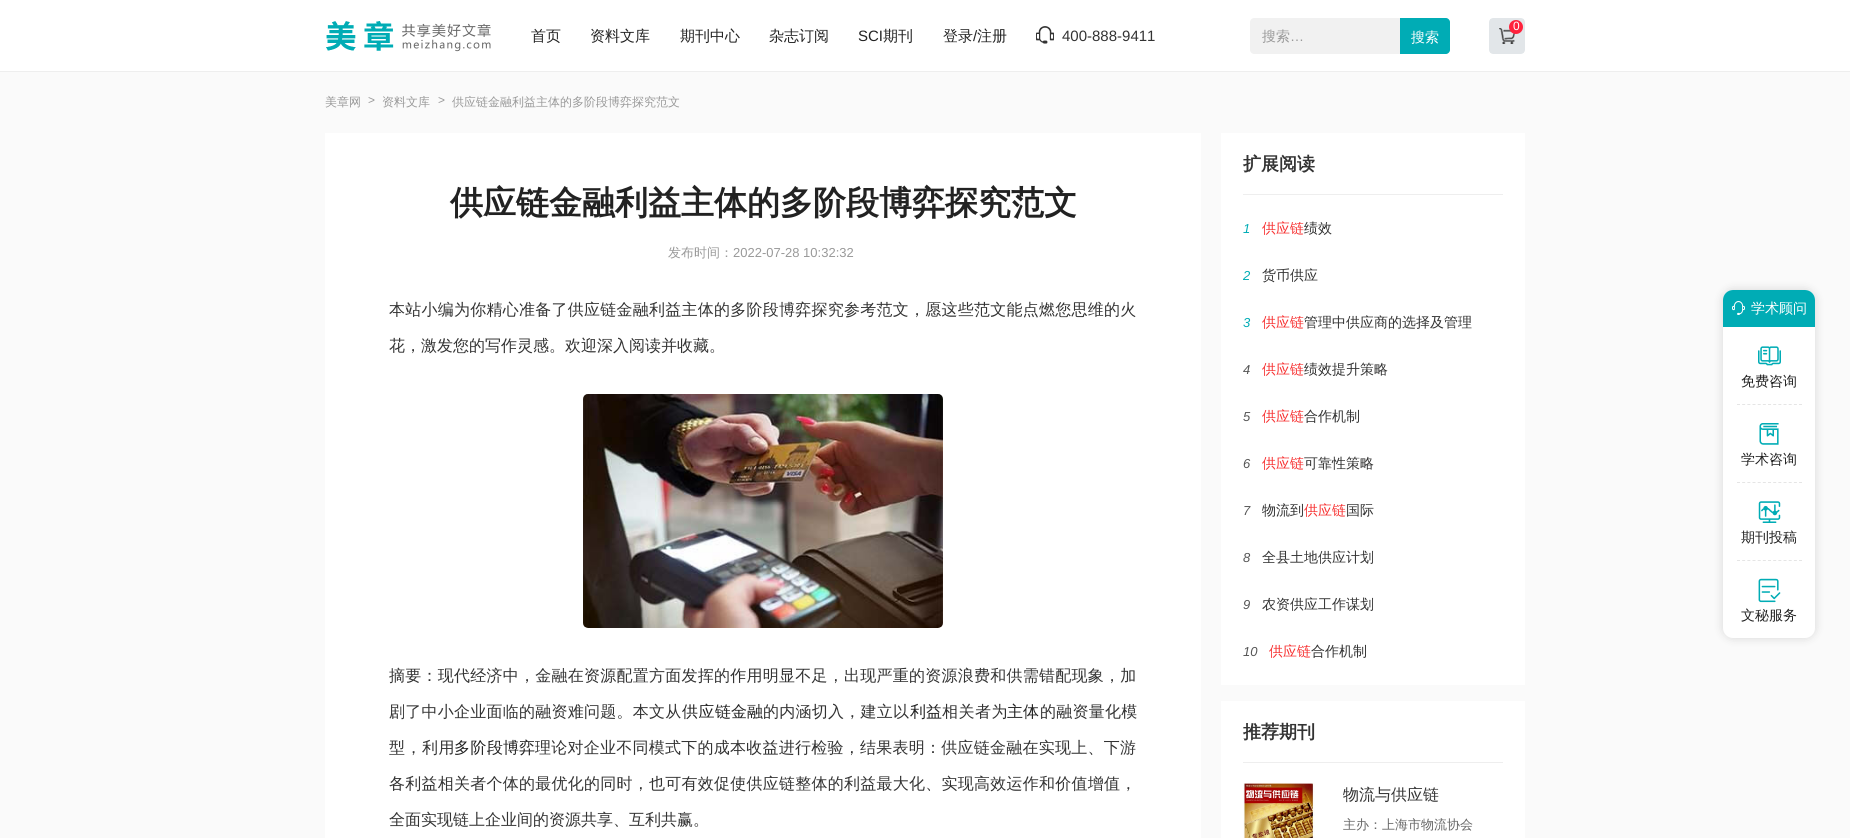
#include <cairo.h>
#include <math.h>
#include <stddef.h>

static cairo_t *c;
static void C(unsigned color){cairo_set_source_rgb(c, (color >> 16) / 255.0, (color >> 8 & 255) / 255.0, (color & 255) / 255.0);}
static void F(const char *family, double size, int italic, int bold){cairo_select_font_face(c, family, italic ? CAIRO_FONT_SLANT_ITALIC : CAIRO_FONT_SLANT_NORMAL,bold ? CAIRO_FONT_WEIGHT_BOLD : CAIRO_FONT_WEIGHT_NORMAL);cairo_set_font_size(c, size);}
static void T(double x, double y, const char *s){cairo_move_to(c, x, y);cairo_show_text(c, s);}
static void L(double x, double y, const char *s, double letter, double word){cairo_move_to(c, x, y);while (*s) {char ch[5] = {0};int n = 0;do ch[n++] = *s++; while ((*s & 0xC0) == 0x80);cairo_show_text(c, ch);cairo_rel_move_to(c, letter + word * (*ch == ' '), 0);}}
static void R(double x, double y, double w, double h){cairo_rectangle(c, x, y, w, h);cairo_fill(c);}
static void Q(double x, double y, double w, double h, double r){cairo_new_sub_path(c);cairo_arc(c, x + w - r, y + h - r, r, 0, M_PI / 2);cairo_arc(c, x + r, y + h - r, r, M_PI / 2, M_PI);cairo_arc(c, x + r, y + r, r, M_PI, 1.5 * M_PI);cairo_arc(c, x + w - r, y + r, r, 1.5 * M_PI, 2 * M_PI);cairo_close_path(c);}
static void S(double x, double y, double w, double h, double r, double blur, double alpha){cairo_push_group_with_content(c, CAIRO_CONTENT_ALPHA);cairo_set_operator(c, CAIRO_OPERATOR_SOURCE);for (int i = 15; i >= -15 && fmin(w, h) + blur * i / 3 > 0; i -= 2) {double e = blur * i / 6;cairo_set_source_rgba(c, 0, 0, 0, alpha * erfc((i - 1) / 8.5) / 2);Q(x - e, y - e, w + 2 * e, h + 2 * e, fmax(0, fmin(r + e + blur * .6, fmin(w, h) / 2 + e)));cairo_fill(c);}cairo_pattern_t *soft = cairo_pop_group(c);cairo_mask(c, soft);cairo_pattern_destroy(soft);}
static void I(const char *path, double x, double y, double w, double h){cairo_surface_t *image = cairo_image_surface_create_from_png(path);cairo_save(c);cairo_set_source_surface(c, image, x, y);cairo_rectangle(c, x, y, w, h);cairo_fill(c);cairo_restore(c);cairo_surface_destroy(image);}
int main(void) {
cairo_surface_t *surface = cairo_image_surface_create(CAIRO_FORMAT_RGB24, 1850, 838);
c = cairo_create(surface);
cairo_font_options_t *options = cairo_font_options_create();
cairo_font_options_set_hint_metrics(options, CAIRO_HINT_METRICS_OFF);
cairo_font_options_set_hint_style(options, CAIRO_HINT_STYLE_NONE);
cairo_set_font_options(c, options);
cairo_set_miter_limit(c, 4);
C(0xfafafa);
cairo_paint(c);
C(0xffffff);
R(0,0,1850,71);
C(0xeeeeee);
R(0,71,1850,1);
I("1.png",326,21,165,31);
F("WenQuanYi Zen Hei Medium",15,0,0);
C(0x222222);
T(531,41,"首页");
T(590,41,"资料文库");
T(680,41,"期刊中心");
T(769,41,"杂志订阅");
F("Liberation Sans",15,0,0);
T(858,41,"SCI");
F("WenQuanYi Zen Hei Medium",15,0,0);
T(883,41,"期刊");
T(943,41,"登录");
F("Liberation Sans",15,0,0);
T(973,41,"/");
F("WenQuanYi Zen Hei Medium",15,0,0);
T(977,41,"注册");
I("2.png",1036,26,18,18);
F("Liberation Sans",15,0,0);
C(0x333333);
T(1062,41,"400-888-9411");
I("3.png",1489,18,36,36);
C(0xff223c);
cairo_arc(c,1516,27,7,0,2 * M_PI);
cairo_fill(c);
F("Liberation Sans",12,0,0);
C(0xffffff);
T(1513,30,"0");
C(0xf1f1f1);
cairo_new_path(c);
cairo_move_to(c,1254,18);
cairo_line_to(c,1400,18);
cairo_line_to(c,1400,54);
cairo_line_to(c,1254,54);
cairo_curve_to(c,1252,54,1250,52,1250,50);
cairo_line_to(c,1250,22);
cairo_curve_to(c,1250,20,1252,18,1254,18);
cairo_close_path(c);
cairo_fill(c);
F("WenQuanYi Zen Hei Medium",14,0,0);
C(0x999999);
T(1262,41,"搜索");
F("Liberation Sans",14,0,0);
T(1290,41,"…");
C(0x00acb5);
cairo_new_path(c);
cairo_move_to(c,1400,18);
cairo_line_to(c,1446,18);
cairo_curve_to(c,1448,18,1450,20,1450,22);
cairo_line_to(c,1450,50);
cairo_curve_to(c,1450,52,1448,54,1446,54);
cairo_line_to(c,1400,54);
cairo_close_path(c);
cairo_fill(c);
F("WenQuanYi Zen Hei Medium",14,0,0);
C(0xffffff);
T(1411,42,"搜索");
F("WenQuanYi Zen Hei Medium",12,0,0);
C(0x999999);
T(325,106,"美章网");
F("Liberation Sans",12,0,0);
T(368,104,">");
F("WenQuanYi Zen Hei Medium",12,0,0);
T(382,106,"资料文库");
F("Liberation Sans",12,0,0);
T(438,104,">");
F("WenQuanYi Zen Hei Medium",12,0,0);
T(452,106,"供应链金融利益主体的多阶段博弈探究范文");
C(0xffffff);
R(325,133,876,705);
F("WenQuanYi Zen Hei",33,0,1);
C(0x222222);
T(450,214,"供应链金融利益主体的多阶段博弈探究范文");
F("WenQuanYi Zen Hei Medium",13,0,0);
C(0x999999);
T(668,257,"发布时间：");
F("Liberation Sans",13,0,0);
T(733,257,"2022-07-28 10:32:32");
F("WenQuanYi Zen Hei Medium",16,0,0);
C(0x333333);
L(389,315,"本站小编为你精心准备了供应链金融利益主体的多阶段博弈探究参考范文，愿这些范文能点燃您思维的火",.25,0);
T(389,351,"花，激发您的写作灵感。欢迎深入阅读并收藏。");
I("4.png",583,394,360,234);
L(389,681,"摘要：现代经济中，金融在资源配置方面发挥的作用明显不足，出现严重的资源浪费和供需错配现象，加",.25,0);
L(389,717,"剧了中小企业面临的融资难问题。本文从",.25,0);
C(0x222222);
L(682,717,"供应链",.5,0);
T(731,717,"金融");
C(0x333333);
L(763,717,"的内涵切入，建立以",.25,0);
C(0x222222);
T(910,717,"利益");
C(0x333333);
L(942,717,"相关者为",.5,0);
C(0x222222);
T(1007,717,"主体");
C(0x333333);
L(1040,717,"的融资量化模",.25,0);
L(389,753,"型，利用",.5,0);
C(0x222222);
L(454,753,"多阶段",.5,0);
T(503,753,"博弈");
C(0x333333);
L(535,753,"理论对企业不同模式下的成本收益进行检验，结果表明：供应链金融在实现上、下游",.25,0);
L(389,789,"各利益相关者个体的最优化的同时，也可有效促使供应链整体的利益最大化、实现高效运作和价值增值，",.25,0);
T(389,825,"全面实现链上企业间的资源共享、互利共赢。");
C(0xffffff);
R(1221,133,304,552);
C(0xeeeeee);
R(1243,194,260,1);
F("WenQuanYi Zen Hei",18,0,1);
C(0x333333);
T(1243,170,"扩展阅读");
F("Liberation Sans",13,1,0);
C(0x00acb5);
T(1243,233,"1");
F("WenQuanYi Zen Hei Medium",14,0,0);
C(0xf73131);
T(1262,233,"供应链");
C(0x333333);
T(1304,233,"绩效");
F("Liberation Sans",13,1,0);
C(0x00acb5);
T(1243,280,"2");
F("WenQuanYi Zen Hei Medium",14,0,0);
C(0x333333);
T(1262,280,"货币供应");
F("Liberation Sans",13,1,0);
C(0x00acb5);
T(1243,327,"3");
F("WenQuanYi Zen Hei Medium",14,0,0);
C(0xf73131);
T(1262,327,"供应链");
C(0x333333);
T(1304,327,"管理中供应商的选择及管理");
F("Liberation Sans",13,1,0);
C(0x555555);
T(1243,374,"4");
F("WenQuanYi Zen Hei Medium",14,0,0);
C(0xf73131);
T(1262,374,"供应链");
C(0x333333);
T(1304,374,"绩效提升策略");
F("Liberation Sans",13,1,0);
C(0x555555);
T(1243,421,"5");
F("WenQuanYi Zen Hei Medium",14,0,0);
C(0xf73131);
T(1262,421,"供应链");
C(0x333333);
T(1304,421,"合作机制");
F("Liberation Sans",13,1,0);
C(0x555555);
T(1243,468,"6");
F("WenQuanYi Zen Hei Medium",14,0,0);
C(0xf73131);
T(1262,468,"供应链");
C(0x333333);
T(1304,468,"可靠性策略");
F("Liberation Sans",13,1,0);
C(0x555555);
T(1243,515,"7");
F("WenQuanYi Zen Hei Medium",14,0,0);
C(0x333333);
T(1262,515,"物流到");
C(0xf73131);
T(1304,515,"供应链");
C(0x333333);
T(1346,515,"国际");
F("Liberation Sans",13,1,0);
C(0x555555);
T(1243,562,"8");
F("WenQuanYi Zen Hei Medium",14,0,0);
C(0x333333);
T(1262,562,"全县土地供应计划");
F("Liberation Sans",13,1,0);
C(0x555555);
T(1243,609,"9");
F("WenQuanYi Zen Hei Medium",14,0,0);
C(0x333333);
T(1262,609,"农资供应工作谋划");
F("Liberation Sans",13,1,0);
C(0x555555);
T(1243,656,"10");
F("WenQuanYi Zen Hei Medium",14,0,0);
C(0xf73131);
T(1269,656,"供应链");
C(0x333333);
T(1311,656,"合作机制");
C(0xffffff);
R(1221,701,304,137);
C(0xeeeeee);
R(1243,762,260,1);
F("WenQuanYi Zen Hei",18,0,1);
C(0x333333);
T(1243,738,"推荐期刊");
I("5.png",1243,783,72,55);
F("WenQuanYi Zen Hei Medium",16,0,0);
T(1343,800,"物流与供应链");
F("WenQuanYi Zen Hei Medium",13,0,0);
C(0x666666);
T(1343,829,"主办：上海市物流协会");
C(0x000000);
S(1723,290,92,348,10,5,.14);
C(0xffffff);
Q(1723,290,92,348,10);
cairo_fill(c);
C(0x00acb5);
cairo_new_path(c);
cairo_move_to(c,1733,290);
cairo_line_to(c,1805,290);
cairo_curve_to(c,1810.5,290,1815,294.5,1815,300);
cairo_line_to(c,1815,327);
cairo_line_to(c,1723,327);
cairo_line_to(c,1723,300);
cairo_curve_to(c,1723,294.5,1727.5,290,1733,290);
cairo_close_path(c);
cairo_fill(c);
I("6.png",1732,301,13,14);
F("WenQuanYi Zen Hei Medium",14,0,0);
C(0xffffff);
T(1751,313,"学术顾问");
cairo_new_path(c);
cairo_move_to(c,1737,404.5);
cairo_line_to(c,1802,404.5);
C(0xe5e5e5);
cairo_set_line_width(c,1);
cairo_set_dash(c,(double[]){3,2.17},2,0);
cairo_stroke(c);
I("7.png",1758,346,23,20);
C(0x222222);
T(1741,386,"免费咨询");
cairo_new_path(c);
cairo_move_to(c,1737,482.5);
cairo_line_to(c,1802,482.5);
C(0xe5e5e5);
cairo_stroke(c);
I("8.png",1759,423,20,22);
C(0x222222);
T(1741,464,"学术咨询");
cairo_new_path(c);
cairo_move_to(c,1737,560.5);
cairo_line_to(c,1802,560.5);
C(0xe5e5e5);
cairo_stroke(c);
I("9.png",1758,501,23,22);
C(0x222222);
T(1741,542,"期刊投稿");
I("10.png",1758,578,23,25);
T(1741,620,"文秘服务");
cairo_surface_write_to_png(surface, "o.png");
cairo_font_options_destroy(options);
cairo_destroy(c);
cairo_surface_destroy(surface);
return 0;
}
